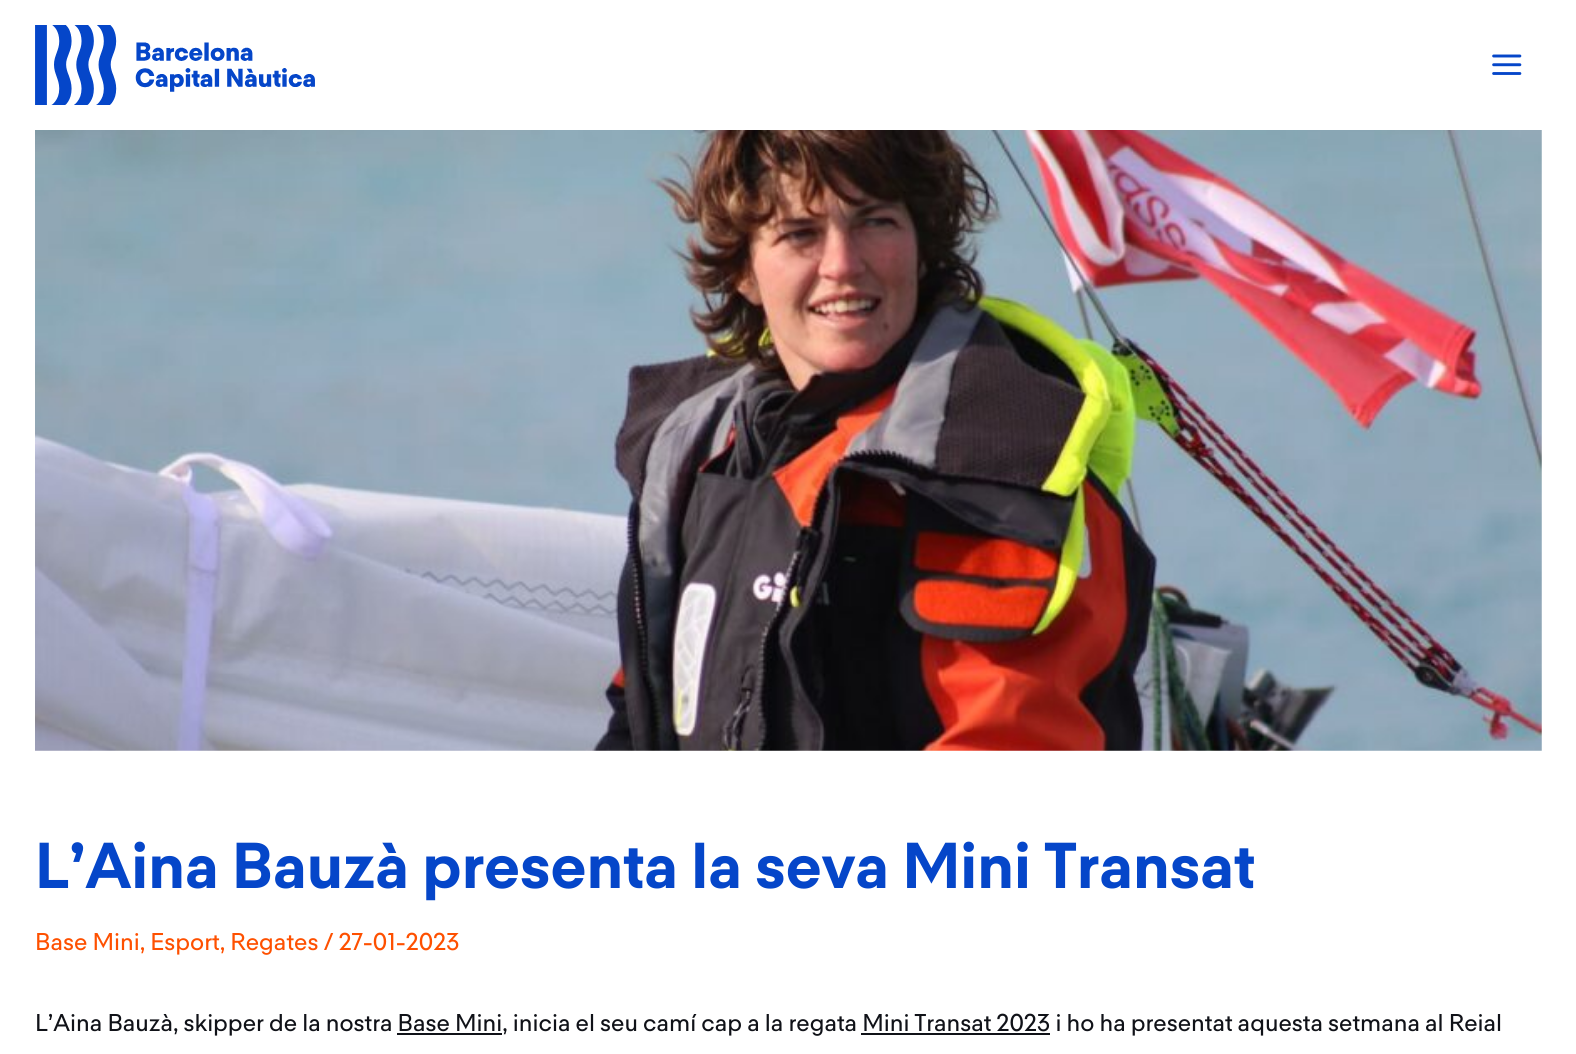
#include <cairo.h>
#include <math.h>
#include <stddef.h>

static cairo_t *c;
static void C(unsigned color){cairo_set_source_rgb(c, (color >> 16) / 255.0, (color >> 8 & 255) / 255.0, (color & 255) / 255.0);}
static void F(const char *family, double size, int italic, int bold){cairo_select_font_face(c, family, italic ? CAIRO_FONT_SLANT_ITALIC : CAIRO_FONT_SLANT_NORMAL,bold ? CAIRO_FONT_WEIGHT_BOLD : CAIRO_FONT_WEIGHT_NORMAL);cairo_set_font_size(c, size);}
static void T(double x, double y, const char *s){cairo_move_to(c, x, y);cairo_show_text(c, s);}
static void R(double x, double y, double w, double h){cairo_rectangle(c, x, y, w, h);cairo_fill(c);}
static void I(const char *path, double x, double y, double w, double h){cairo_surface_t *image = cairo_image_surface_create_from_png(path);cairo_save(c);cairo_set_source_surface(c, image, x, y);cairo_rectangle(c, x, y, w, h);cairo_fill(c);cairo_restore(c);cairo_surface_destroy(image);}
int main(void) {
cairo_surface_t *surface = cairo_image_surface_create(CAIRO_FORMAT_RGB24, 1576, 1054);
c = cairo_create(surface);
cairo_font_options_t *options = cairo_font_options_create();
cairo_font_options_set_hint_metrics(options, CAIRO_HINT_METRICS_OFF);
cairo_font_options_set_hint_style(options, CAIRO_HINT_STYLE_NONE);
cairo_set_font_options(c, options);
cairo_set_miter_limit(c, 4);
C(0xffffff);
cairo_paint(c);
I("1.png",35,25,280,80);
I("2.png",1492,54,30,21);
I("3.png",35,130,1507,621);
F("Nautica",63.8,0,1);
C(0x0546c9);
T(35,888,"L’Aina Bauzà presenta la seva Mini Transat");
F("Nautica Medium",23.95,0,0);
C(0xfe5000);
T(35,950,"Base Mini, Esport, Regates / 27-01-2023");
C(0x101218);
T(35,1031,"L’Aina Bauzà, skipper de la nostra Base Mini, inicia el seu camí cap a la regata Mini Transat 2023 i ho ha presentat aquesta setmana al Reial");
R(397,1033,105,2);
R(861,1033,189,2);
cairo_surface_write_to_png(surface, "o.png");
cairo_font_options_destroy(options);
cairo_destroy(c);
cairo_surface_destroy(surface);
return 0;
}
